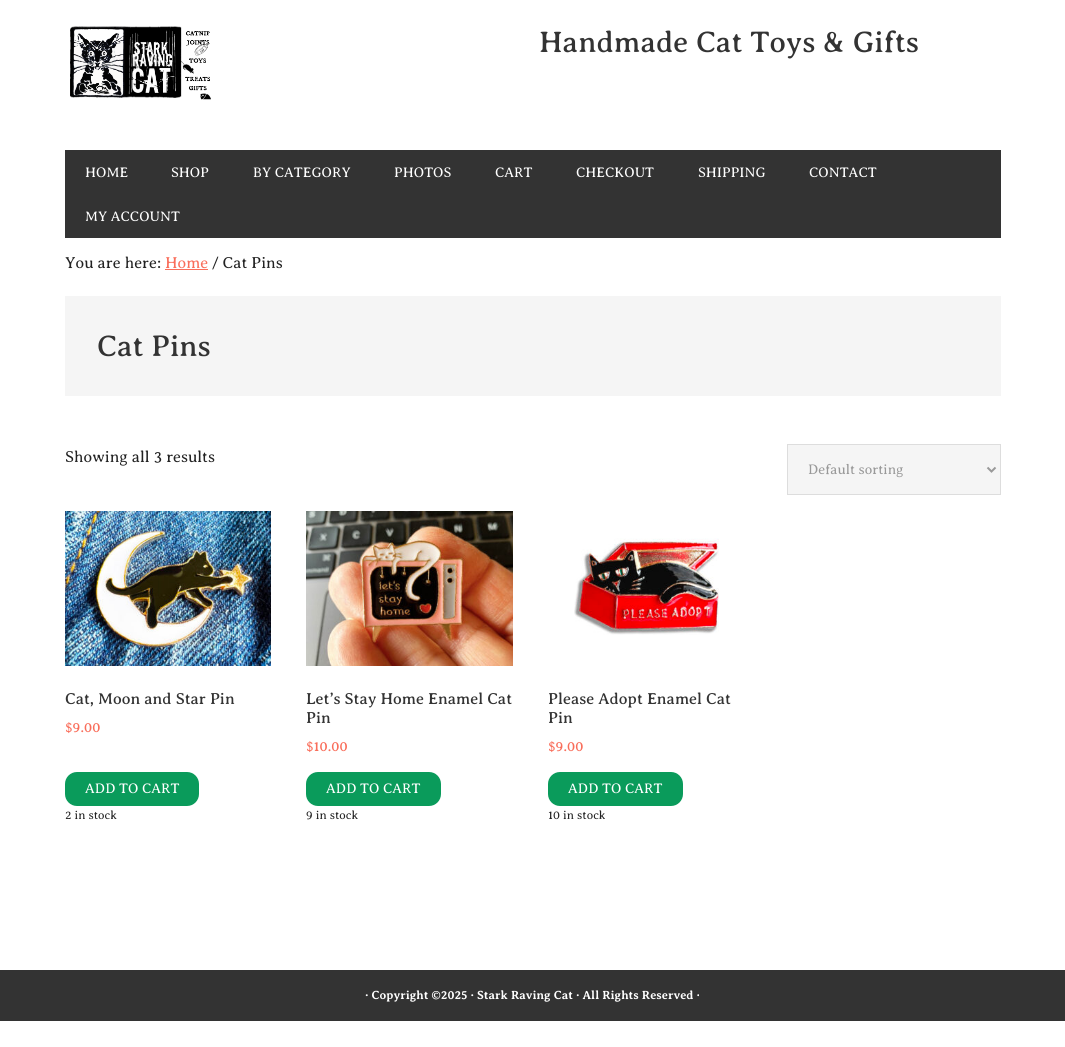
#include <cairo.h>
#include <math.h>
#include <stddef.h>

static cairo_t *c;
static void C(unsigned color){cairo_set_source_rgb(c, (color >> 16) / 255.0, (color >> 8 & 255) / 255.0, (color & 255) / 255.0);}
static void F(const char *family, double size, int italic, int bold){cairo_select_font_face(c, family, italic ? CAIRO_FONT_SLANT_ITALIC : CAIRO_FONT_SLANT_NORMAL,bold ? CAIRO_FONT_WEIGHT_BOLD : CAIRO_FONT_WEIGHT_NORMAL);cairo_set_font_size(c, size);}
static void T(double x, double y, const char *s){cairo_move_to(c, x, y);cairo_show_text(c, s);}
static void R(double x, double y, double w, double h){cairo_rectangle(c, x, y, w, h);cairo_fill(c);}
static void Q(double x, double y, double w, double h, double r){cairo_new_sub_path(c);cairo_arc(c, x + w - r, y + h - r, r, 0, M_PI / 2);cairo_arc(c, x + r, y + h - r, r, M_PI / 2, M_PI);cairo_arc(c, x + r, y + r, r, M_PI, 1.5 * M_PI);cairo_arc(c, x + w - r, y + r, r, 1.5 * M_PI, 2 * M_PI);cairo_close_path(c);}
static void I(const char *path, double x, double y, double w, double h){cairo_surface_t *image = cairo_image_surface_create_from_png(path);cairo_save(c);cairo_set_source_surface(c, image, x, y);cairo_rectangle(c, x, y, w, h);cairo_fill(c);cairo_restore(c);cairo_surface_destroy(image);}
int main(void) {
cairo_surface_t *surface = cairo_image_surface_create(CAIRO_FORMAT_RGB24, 1065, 1047);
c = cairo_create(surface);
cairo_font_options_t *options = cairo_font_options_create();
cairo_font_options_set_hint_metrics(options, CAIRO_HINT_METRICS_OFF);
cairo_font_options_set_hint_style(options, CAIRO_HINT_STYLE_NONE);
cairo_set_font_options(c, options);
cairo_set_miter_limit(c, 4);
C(0xffffff);
cairo_paint(c);
I("1.png",70,26,141,74);
F("Averia Serif Libre",30,0,0);
C(0x333333);
T(539,52,"Handmade Cat Toys & Gifts");
R(65,150,936,88);
F("Averia Serif Libre Light",14,0,0);
C(0xffffff);
T(85,177,"HOME");
T(171,177,"SHOP");
T(253,177,"BY CATEGORY");
T(394,177,"PHOTOS");
T(495,177,"CART");
T(576,177,"CHECKOUT");
T(698,177,"SHIPPING");
T(809,177,"CONTACT");
T(85,221,"MY ACCOUNT");
F("Averia Serif Libre Light",16,0,0);
C(0x222222);
T(65,268,"You are here:");
C(0xf96e5b);
T(165,268,"Home");
R(165,269,43,1);
C(0x222222);
T(212,268,"/ Cat Pins");
C(0xf5f5f5);
R(65,296,936,100);
F("Averia Serif Libre",30,0,0);
C(0x333333);
T(97,356,"Cat Pins");
F("Averia Serif Libre Light",16,0,0);
C(0x222222);
T(65,462,"Showing all 3 results");
C(0xf5f5f5);
cairo_rectangle(c,787.5,444.5,213,50);
cairo_fill_preserve(c);
C(0xdddddd);
cairo_set_line_width(c,1);
cairo_stroke(c);
cairo_new_path(c);
cairo_move_to(c,987.5,467.5);
cairo_line_to(c,991.5,471.5);
cairo_line_to(c,995.5,467.5);
C(0x999999);
cairo_set_line_width(c,2);
cairo_stroke(c);
F("Averia Serif Libre Light",14,0,0);
T(808,474,"Default sorting");
I("2.png",65,511,206,155);
F("Averia Serif Libre",16,0,0);
C(0x333333);
T(65,704,"Cat, Moon and Star Pin");
F("Averia Serif Libre",14,0,0);
C(0xf96e5b);
T(65,732,"$9.00");
C(0x0a9b5b);
Q(65,772,134,34,12);
cairo_fill(c);
F("Averia Serif Libre Light",14,0,0);
C(0xffffff);
T(85,793,"ADD TO CART");
F("Averia Serif Libre Light",12,0,0);
C(0x222222);
T(65,819,"2 in stock");
I("3.png",306,511,207,155);
F("Averia Serif Libre",16,0,0);
C(0x333333);
T(306,704,"Let’s Stay Home Enamel Cat");
T(306,723,"Pin");
F("Averia Serif Libre",14,0,0);
C(0xf96e5b);
T(306,751,"$10.00");
C(0x0a9b5b);
Q(306,772,135,34,12);
cairo_fill(c);
F("Averia Serif Libre Light",14,0,0);
C(0xffffff);
T(326,793,"ADD TO CART");
F("Averia Serif Libre Light",12,0,0);
C(0x222222);
T(306,819,"9 in stock");
I("4.png",574,538,145,97);
F("Averia Serif Libre",16,0,0);
C(0x333333);
T(548,704,"Please Adopt Enamel Cat");
T(548,723,"Pin");
F("Averia Serif Libre",14,0,0);
C(0xf96e5b);
T(548,751,"$9.00");
C(0x0a9b5b);
Q(548,772,135,34,12);
cairo_fill(c);
F("Averia Serif Libre Light",14,0,0);
C(0xffffff);
T(568,793,"ADD TO CART");
F("Averia Serif Libre Light",12,0,0);
C(0x222222);
T(548,819,"10 in stock");
C(0x333333);
R(0,970,1065,51);
F("Averia Serif Libre",12,0,1);
C(0xffffff);
T(365,999,"· Copyright ©2025 · Stark Raving Cat · All Rights Reserved ·");
cairo_surface_write_to_png(surface, "o.png");
cairo_font_options_destroy(options);
cairo_destroy(c);
cairo_surface_destroy(surface);
return 0;
}
